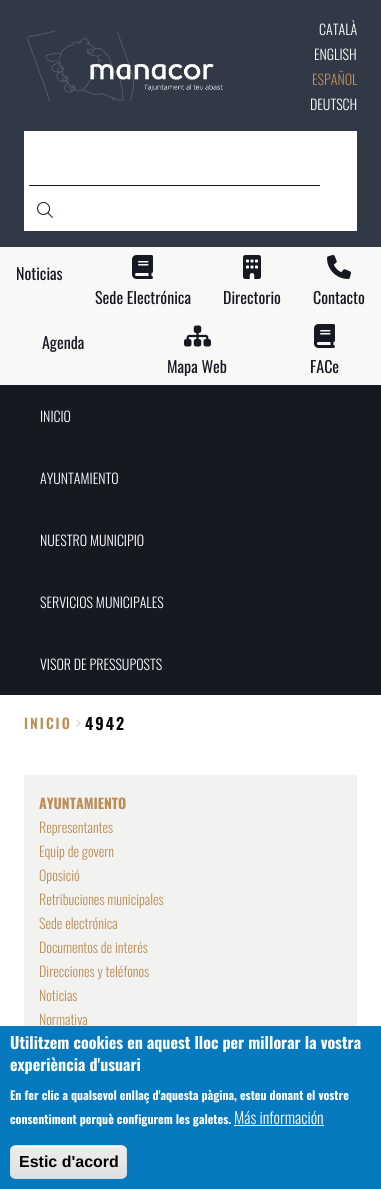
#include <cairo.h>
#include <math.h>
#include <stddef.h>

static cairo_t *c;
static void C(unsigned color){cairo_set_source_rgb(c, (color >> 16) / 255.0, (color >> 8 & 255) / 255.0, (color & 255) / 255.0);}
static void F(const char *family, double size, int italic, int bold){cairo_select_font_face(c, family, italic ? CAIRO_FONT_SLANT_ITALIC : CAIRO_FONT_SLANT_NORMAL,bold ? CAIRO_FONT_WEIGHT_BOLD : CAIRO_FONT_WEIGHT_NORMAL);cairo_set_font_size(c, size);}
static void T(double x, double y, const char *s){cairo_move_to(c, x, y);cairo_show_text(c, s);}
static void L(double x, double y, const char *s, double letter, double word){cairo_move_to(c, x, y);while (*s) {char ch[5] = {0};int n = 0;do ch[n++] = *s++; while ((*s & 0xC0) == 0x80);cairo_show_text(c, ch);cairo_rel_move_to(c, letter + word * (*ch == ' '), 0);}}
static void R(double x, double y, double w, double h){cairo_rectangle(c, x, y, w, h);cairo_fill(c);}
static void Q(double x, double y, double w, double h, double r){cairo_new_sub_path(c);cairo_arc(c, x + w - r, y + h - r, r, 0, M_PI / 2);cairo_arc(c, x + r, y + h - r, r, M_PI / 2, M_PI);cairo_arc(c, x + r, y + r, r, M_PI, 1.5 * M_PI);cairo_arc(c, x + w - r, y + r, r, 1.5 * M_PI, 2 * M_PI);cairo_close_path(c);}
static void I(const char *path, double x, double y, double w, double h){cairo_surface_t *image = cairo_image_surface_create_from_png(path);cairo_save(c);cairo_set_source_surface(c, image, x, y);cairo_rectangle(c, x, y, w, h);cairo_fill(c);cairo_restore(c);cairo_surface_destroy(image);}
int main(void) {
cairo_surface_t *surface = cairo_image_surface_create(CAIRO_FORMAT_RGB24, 381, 1189);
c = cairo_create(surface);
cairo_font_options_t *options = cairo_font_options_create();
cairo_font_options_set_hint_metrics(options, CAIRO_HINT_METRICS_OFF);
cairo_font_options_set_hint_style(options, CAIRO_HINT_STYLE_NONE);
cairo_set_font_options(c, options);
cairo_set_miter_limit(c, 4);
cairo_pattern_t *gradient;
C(0xf8f8f6);
cairo_paint(c);
C(0x323946);
R(0,0,381,247);
I("1.png",27,31,196,70);
F("Oswald Light",14,0,0);
C(0xffffff);
T(319,35,"CATALÀ");
T(314,60,"ENGLISH");
C(0xbe8e56);
T(312,85,"ESPAÑOL");
C(0xffffff);
T(310,110,"DEUTSCH");
R(24,131,333,100);
C(0x161921);
R(29,185,291,1);
I("2.png",37,202,16,16);
F("Oswald",16,0,0);
T(16,280,"Noticias");
I("3.png",132,255,21,24);
T(95,304,"Sede Electrónica");
I("4.png",243,255,18,24);
T(223,304,"Directorio");
I("5.png",327,255,24,24);
T(313,304,"Contacto");
T(42,349,"Agenda");
I("6.png",184,325,27,22);
T(167,373,"Mapa Web");
I("3.png",314,324,21,24);
T(310,373,"FACe");
R(0,385,381,310);
F("Oswald Light",14,0,0);
C(0xffffff);
T(40,422,"INICIO");
T(40,484,"AYUNTAMIENTO");
T(40,546,"NUESTRO MUNICIPIO");
T(40,608,"SERVICIOS MUNICIPALES");
T(40,670,"VISOR DE PRESSUPOSTS");
R(0,695,381,331);
F("Oswald SemiBold",14,0,0);
C(0xbe8e56);
L(24,729,"INICIO",2,0);
I("7.png",76,720,5,7);
F("Oswald SemiBold",16,0,0);
C(0x000000);
L(85,730,"4942",2,0);
C(0xf2f2f1);
R(24,775,333,251);
F("Oswald",14,0,1);
C(0xbe8e56);
T(39,809,"AYUNTAMIENTO");
F("Oswald Light",14,0,0);
T(39,833,"Representantes");
T(39,857,"Equip de govern");
T(39,881,"Oposició");
T(39,905,"Retribuciones municipales");
T(39,929,"Sede electrónica");
T(39,953,"Documentos de interés");
T(39,977,"Direcciones y teléfonos");
T(39,1001,"Noticias");
T(39,1025,"Normativa");
C(0x0779bf);
R(0,1026,381,163);
F("Oswald",16,0,1);
C(0xffffff);
T(10,1049,"Utilitzem cookies en aquest lloc per millorar la vostra");
T(10,1071,"experiència d'usuari");
F("Oswald",12,0,1);
T(10,1100,"En fer clic a qualsevol enllaç d'aquesta pàgina, esteu donant el vostre");
T(10,1124,"consentiment perquè configurem les galetes.");
F("Oswald Light",16,0,0);
T(234,1124,"Más información");
R(234,1125,90,1);
cairo_save(c);
Q(10,1145,117,34,6);
cairo_clip(c);
gradient = cairo_pattern_create_linear(69,1146,69,1178);
cairo_pattern_add_color_stop_rgba(gradient,.05,0.929,0.929,0.929,1);
cairo_pattern_add_color_stop_rgba(gradient,1,0.875,0.875,0.875,1);
cairo_set_source(c,gradient);
cairo_pattern_destroy(gradient);
R(10,1146,117,32);
cairo_restore(c);
cairo_new_path(c);
cairo_move_to(c,16,1147);
cairo_line_to(c,121,1147);
cairo_curve_to(c,124,1147,126,1149,126,1152);
cairo_curve_to(c,126,1142,108,1146,104,1146);
cairo_line_to(c,34,1146);
cairo_curve_to(c,29,1146,11,1142,11,1152);
cairo_curve_to(c,11,1149,13,1147,16,1147);
cairo_close_path(c);
cairo_fill(c);
Q(10.5,1145.5,116,33,5.5);
C(0xdcdcdc);
cairo_set_line_width(c,1);
cairo_stroke(c);
F("Liberation Sans",16,0,1);
C(0x000000);
T(19,1167,"Estic d'acord");
cairo_surface_write_to_png(surface, "o.png");
cairo_font_options_destroy(options);
cairo_destroy(c);
cairo_surface_destroy(surface);
return 0;
}
